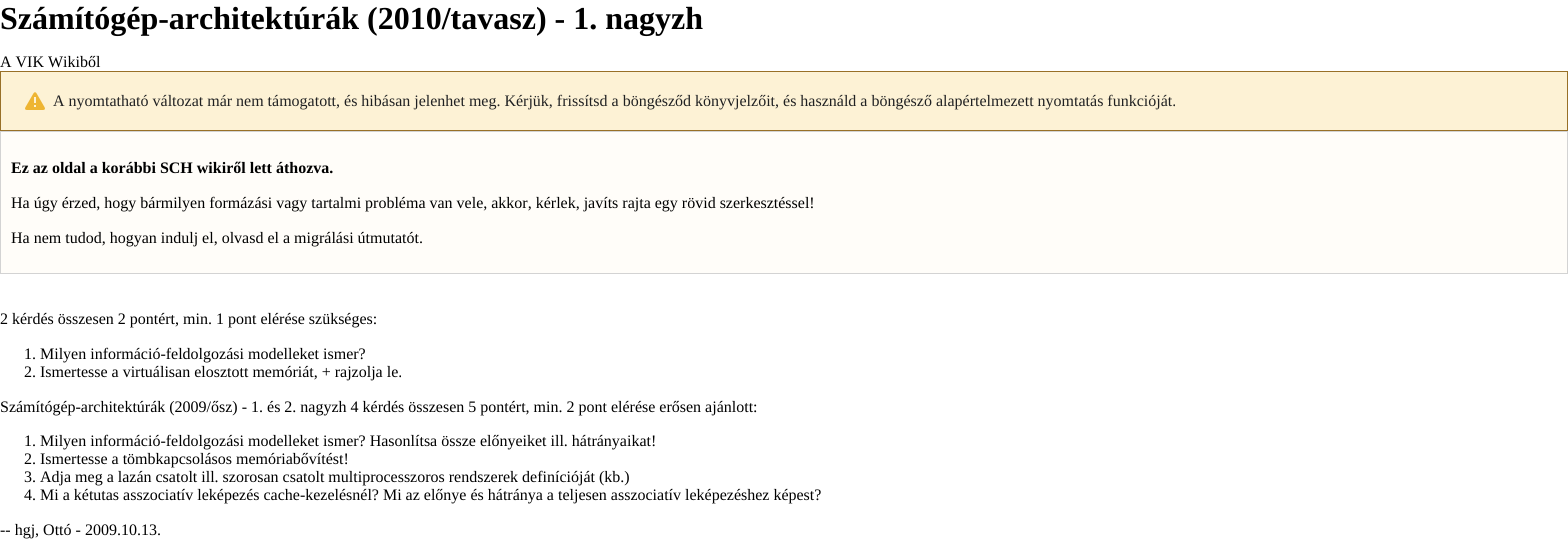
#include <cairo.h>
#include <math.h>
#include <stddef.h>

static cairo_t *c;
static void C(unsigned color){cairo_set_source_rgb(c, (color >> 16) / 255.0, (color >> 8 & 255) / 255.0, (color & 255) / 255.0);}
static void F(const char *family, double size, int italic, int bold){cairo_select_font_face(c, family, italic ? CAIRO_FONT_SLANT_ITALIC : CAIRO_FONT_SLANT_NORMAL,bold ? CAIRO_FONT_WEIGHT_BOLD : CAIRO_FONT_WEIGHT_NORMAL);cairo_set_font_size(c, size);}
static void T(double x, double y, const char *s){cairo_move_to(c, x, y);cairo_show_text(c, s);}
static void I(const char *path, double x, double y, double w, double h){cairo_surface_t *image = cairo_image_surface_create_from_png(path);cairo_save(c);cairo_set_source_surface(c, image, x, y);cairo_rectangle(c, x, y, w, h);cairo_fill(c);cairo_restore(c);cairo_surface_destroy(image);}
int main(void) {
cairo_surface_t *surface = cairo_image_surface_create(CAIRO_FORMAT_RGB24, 1568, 558);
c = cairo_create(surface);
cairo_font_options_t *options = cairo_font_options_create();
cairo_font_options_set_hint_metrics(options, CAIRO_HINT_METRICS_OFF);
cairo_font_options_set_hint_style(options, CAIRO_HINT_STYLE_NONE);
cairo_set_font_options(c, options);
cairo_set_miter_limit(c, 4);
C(0xffffff);
cairo_paint(c);
F("Liberation Serif",32,0,1);
C(0x000000);
T(0,29,"Számítógép-architektúrák (2010/tavasz) - 1. nagyzh");
F("Liberation Serif",16,0,0);
T(0,67,"A VIK Wikiből");
C(0xfdf2d5);
cairo_rectangle(c,.5,71.5,1567,59);
cairo_fill_preserve(c);
C(0x987027);
cairo_set_line_width(c,1);
cairo_stroke(c);
I("1.png",25,92,20,18);
C(0x202122);
T(53,106,"A nyomtatható változat már nem támogatott, és hibásan jelenhet meg. Kérjük, frissítsd a böngésződ könyvjelzőit, és használd a böngésző alapértelmezett nyomtatás funkcióját.");
C(0xfffdf9);
cairo_rectangle(c,.5,131.5,1567,142);
cairo_fill_preserve(c);
C(0xd3d3d3);
cairo_stroke(c);
F("Liberation Serif",16,0,1);
C(0x000000);
T(11,173,"Ez az oldal a korábbi SCH wikiről lett áthozva.");
F("Liberation Serif",16,0,0);
T(11,208,"Ha úgy érzed, hogy bármilyen formázási vagy tartalmi probléma van vele, akkor, kérlek, javíts rajta egy rövid szerkesztéssel!");
T(11,243,"Ha nem tudod, hogyan indulj el, olvasd el a migrálási útmutatót.");
T(0,324,"2 kérdés összesen 2 pontért, min. 1 pont elérése szükséges:");
T(24,359,"1. Milyen információ-feldolgozási modelleket ismer?");
T(24,377,"2. Ismertesse a virtuálisan elosztott memóriát, + rajzolja le.");
T(0,412,"Számítógép-architektúrák (2009/ősz) - 1. és 2. nagyzh 4 kérdés összesen 5 pontért, min. 2 pont elérése erősen ajánlott:");
T(24,446,"1. Milyen információ-feldolgozási modelleket ismer? Hasonlítsa össze előnyeiket ill. hátrányaikat!");
T(24,464,"2. Ismertesse a tömbkapcsolásos memóriabővítést!");
T(24,482,"3. Adja meg a lazán csatolt ill. szorosan csatolt multiprocesszoros rendszerek definícióját (kb.)");
T(24,500,"4. Mi a kétutas asszociatív leképezés cache-kezelésnél? Mi az előnye és hátránya a teljesen asszociatív leképezéshez képest?");
T(0,535,"-- hgj, Ottó - 2009.10.13.");
cairo_surface_write_to_png(surface, "o.png");
cairo_font_options_destroy(options);
cairo_destroy(c);
cairo_surface_destroy(surface);
return 0;
}
